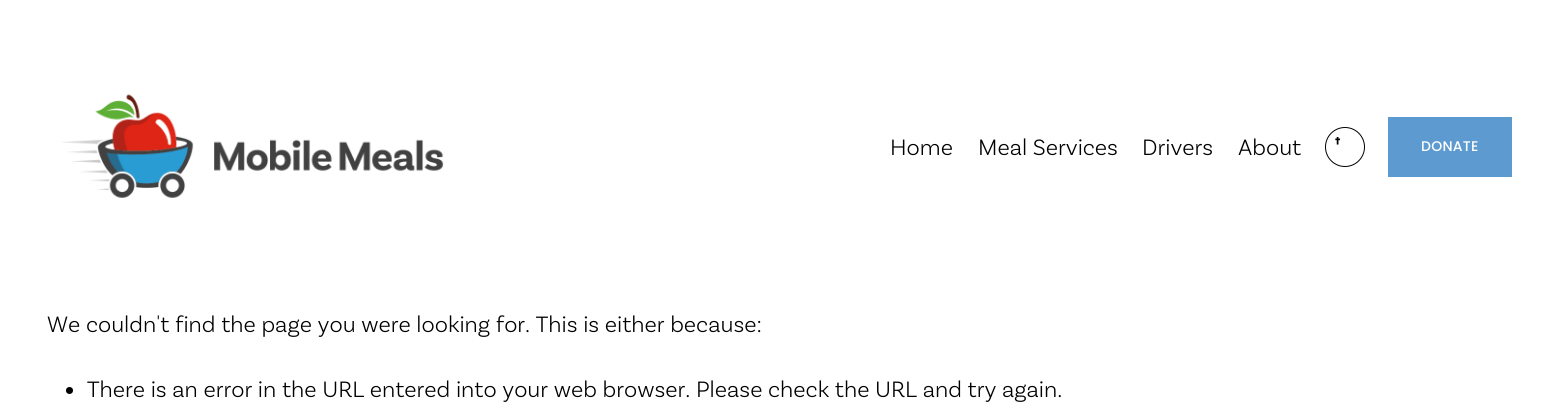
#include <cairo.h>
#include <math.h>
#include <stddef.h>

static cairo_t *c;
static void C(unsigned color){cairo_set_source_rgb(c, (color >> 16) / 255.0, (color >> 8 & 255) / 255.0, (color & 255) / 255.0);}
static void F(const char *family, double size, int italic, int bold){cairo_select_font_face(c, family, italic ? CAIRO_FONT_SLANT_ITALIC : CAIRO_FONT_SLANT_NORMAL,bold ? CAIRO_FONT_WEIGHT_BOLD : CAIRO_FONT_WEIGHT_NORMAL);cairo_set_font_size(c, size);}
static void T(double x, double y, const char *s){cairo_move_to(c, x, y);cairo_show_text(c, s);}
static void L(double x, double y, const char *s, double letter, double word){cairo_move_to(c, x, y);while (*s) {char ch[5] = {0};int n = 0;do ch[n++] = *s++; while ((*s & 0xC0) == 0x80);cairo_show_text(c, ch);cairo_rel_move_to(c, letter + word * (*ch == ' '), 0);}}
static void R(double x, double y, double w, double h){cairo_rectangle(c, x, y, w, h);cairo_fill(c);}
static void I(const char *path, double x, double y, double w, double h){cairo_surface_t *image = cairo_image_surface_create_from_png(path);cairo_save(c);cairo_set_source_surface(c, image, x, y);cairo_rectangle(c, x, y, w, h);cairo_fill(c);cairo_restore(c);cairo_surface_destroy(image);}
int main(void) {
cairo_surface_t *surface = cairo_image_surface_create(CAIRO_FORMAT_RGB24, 1559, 413);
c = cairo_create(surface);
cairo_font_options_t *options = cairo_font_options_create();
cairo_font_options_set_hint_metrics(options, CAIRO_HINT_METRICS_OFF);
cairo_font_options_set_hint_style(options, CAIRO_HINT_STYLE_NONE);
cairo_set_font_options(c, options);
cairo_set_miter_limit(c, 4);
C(0xffffff);
cairo_paint(c);
I("1.png",61,94,383,104);
F("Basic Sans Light",23.5,0,0);
C(0x000000);
T(890,155,"Home");
T(978,155,"Meal Services");
T(1142,155,"Drivers");
T(1238,155,"About");
cairo_new_path(c);
cairo_arc(c,1345,147,19.5,0,2 * M_PI);
cairo_set_line_width(c,1);
cairo_stroke(c);
I("2.png",1335,137,6,8);
C(0x5d9ad0);
R(1388,117,124,60);
F("Poppins Medium",14,0,0);
C(0xffffff);
L(1421,151,"DONATE",.25,0);
F("Basic Sans Light",23.5,0,0);
C(0x000000);
T(47,332,"We couldn't find the page you were looking for. This is either because:");
cairo_new_path(c);
cairo_arc(c,69.5,390.5,3.5,0,2 * M_PI);
cairo_fill(c);
T(87,397,"There is an error in the URL entered into your web browser. Please check the URL and try again.");
cairo_surface_write_to_png(surface, "o.png");
cairo_font_options_destroy(options);
cairo_destroy(c);
cairo_surface_destroy(surface);
return 0;
}
